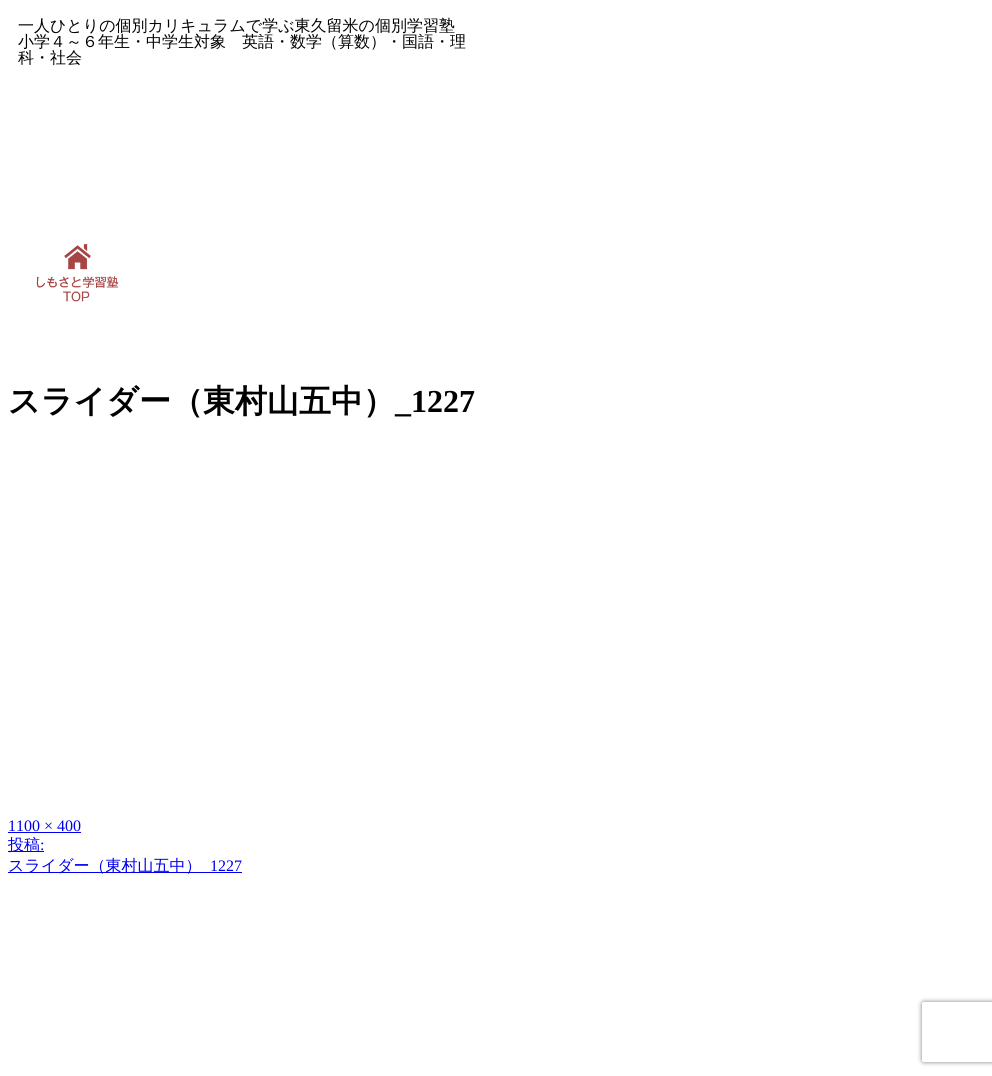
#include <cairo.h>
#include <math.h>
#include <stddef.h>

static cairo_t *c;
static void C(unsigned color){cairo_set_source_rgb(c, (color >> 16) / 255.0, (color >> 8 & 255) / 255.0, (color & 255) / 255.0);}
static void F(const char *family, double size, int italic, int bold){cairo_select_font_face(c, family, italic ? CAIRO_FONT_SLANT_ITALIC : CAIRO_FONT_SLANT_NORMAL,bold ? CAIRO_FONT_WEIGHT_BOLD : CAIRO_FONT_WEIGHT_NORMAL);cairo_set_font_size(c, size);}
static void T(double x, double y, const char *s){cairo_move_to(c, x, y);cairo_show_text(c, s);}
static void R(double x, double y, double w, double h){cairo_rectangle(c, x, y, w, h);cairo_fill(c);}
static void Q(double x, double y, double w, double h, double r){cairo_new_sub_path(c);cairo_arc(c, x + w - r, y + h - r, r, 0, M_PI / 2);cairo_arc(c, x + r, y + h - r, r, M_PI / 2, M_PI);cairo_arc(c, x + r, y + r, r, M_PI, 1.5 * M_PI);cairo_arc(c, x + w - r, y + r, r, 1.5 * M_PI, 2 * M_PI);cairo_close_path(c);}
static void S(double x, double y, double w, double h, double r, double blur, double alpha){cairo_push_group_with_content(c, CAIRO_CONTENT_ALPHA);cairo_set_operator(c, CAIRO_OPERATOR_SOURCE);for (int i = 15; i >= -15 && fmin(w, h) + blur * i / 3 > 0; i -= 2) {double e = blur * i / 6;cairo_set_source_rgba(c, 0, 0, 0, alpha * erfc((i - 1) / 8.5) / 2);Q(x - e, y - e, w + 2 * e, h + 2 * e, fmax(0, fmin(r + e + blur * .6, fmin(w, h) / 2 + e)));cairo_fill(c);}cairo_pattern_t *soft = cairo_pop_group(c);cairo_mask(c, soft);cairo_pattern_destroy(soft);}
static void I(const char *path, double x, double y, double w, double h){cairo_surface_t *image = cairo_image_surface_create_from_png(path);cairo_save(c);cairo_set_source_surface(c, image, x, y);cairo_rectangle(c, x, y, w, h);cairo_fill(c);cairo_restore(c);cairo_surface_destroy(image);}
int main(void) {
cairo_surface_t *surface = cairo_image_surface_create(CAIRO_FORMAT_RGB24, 992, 1076);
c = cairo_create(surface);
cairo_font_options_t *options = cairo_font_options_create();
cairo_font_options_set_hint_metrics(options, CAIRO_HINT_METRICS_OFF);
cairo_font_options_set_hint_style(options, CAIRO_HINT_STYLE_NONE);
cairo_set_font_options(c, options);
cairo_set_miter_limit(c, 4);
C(0xffffff);
cairo_paint(c);
F("WenQuanYi Zen Hei Medium",16,0,0);
C(0x000000);
T(18,31,"一人ひとりの個別カリキュラムで学ぶ東久留米の個別学習塾");
T(18,47,"小学４～６年生・中学生対象　英語・数学（算数）・国語・理");
T(18,63,"科・社会");
I("1.png",36,244,83,58);
F("WenQuanYi Zen Hei",32,0,1);
T(8,412,"スライダー（東村山五中）");
F("Liberation Serif",32,0,1);
T(395,412,"_1227");
F("Liberation Serif",16,0,0);
C(0x0000ee);
T(8,831,"1100 × 400");
R(8,832,73,1);
R(8,851,36,1);
F("WenQuanYi Zen Hei Medium",16,0,0);
T(8,850,"投稿");
F("Liberation Serif",16,0,0);
T(40,850,":");
R(8,872,234,1);
F("WenQuanYi Zen Hei Medium",16,0,0);
T(8,871,"スライダー（東村山五中）");
F("Liberation Serif",16,0,0);
T(210,871,"1227");
cairo_save(c);
cairo_set_fill_rule(c,CAIRO_FILL_RULE_EVEN_ODD);
cairo_new_path(c);
cairo_move_to(c,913,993);
cairo_line_to(c,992,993);
cairo_line_to(c,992,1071);
cairo_line_to(c,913,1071);
cairo_close_path(c);
cairo_move_to(c,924,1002);
cairo_line_to(c,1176,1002);
cairo_curve_to(c,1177,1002,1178,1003,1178,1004);
cairo_line_to(c,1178,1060);
cairo_curve_to(c,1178,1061,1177,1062,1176,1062);
cairo_line_to(c,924,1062);
cairo_curve_to(c,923,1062,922,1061,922,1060);
cairo_line_to(c,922,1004);
cairo_curve_to(c,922,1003,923,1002,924,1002);
cairo_close_path(c);
cairo_clip(c);
C(0x808080);
S(922,1002,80,60,2,2.5,1);
cairo_restore(c);
cairo_surface_write_to_png(surface, "o.png");
cairo_font_options_destroy(options);
cairo_destroy(c);
cairo_surface_destroy(surface);
return 0;
}
